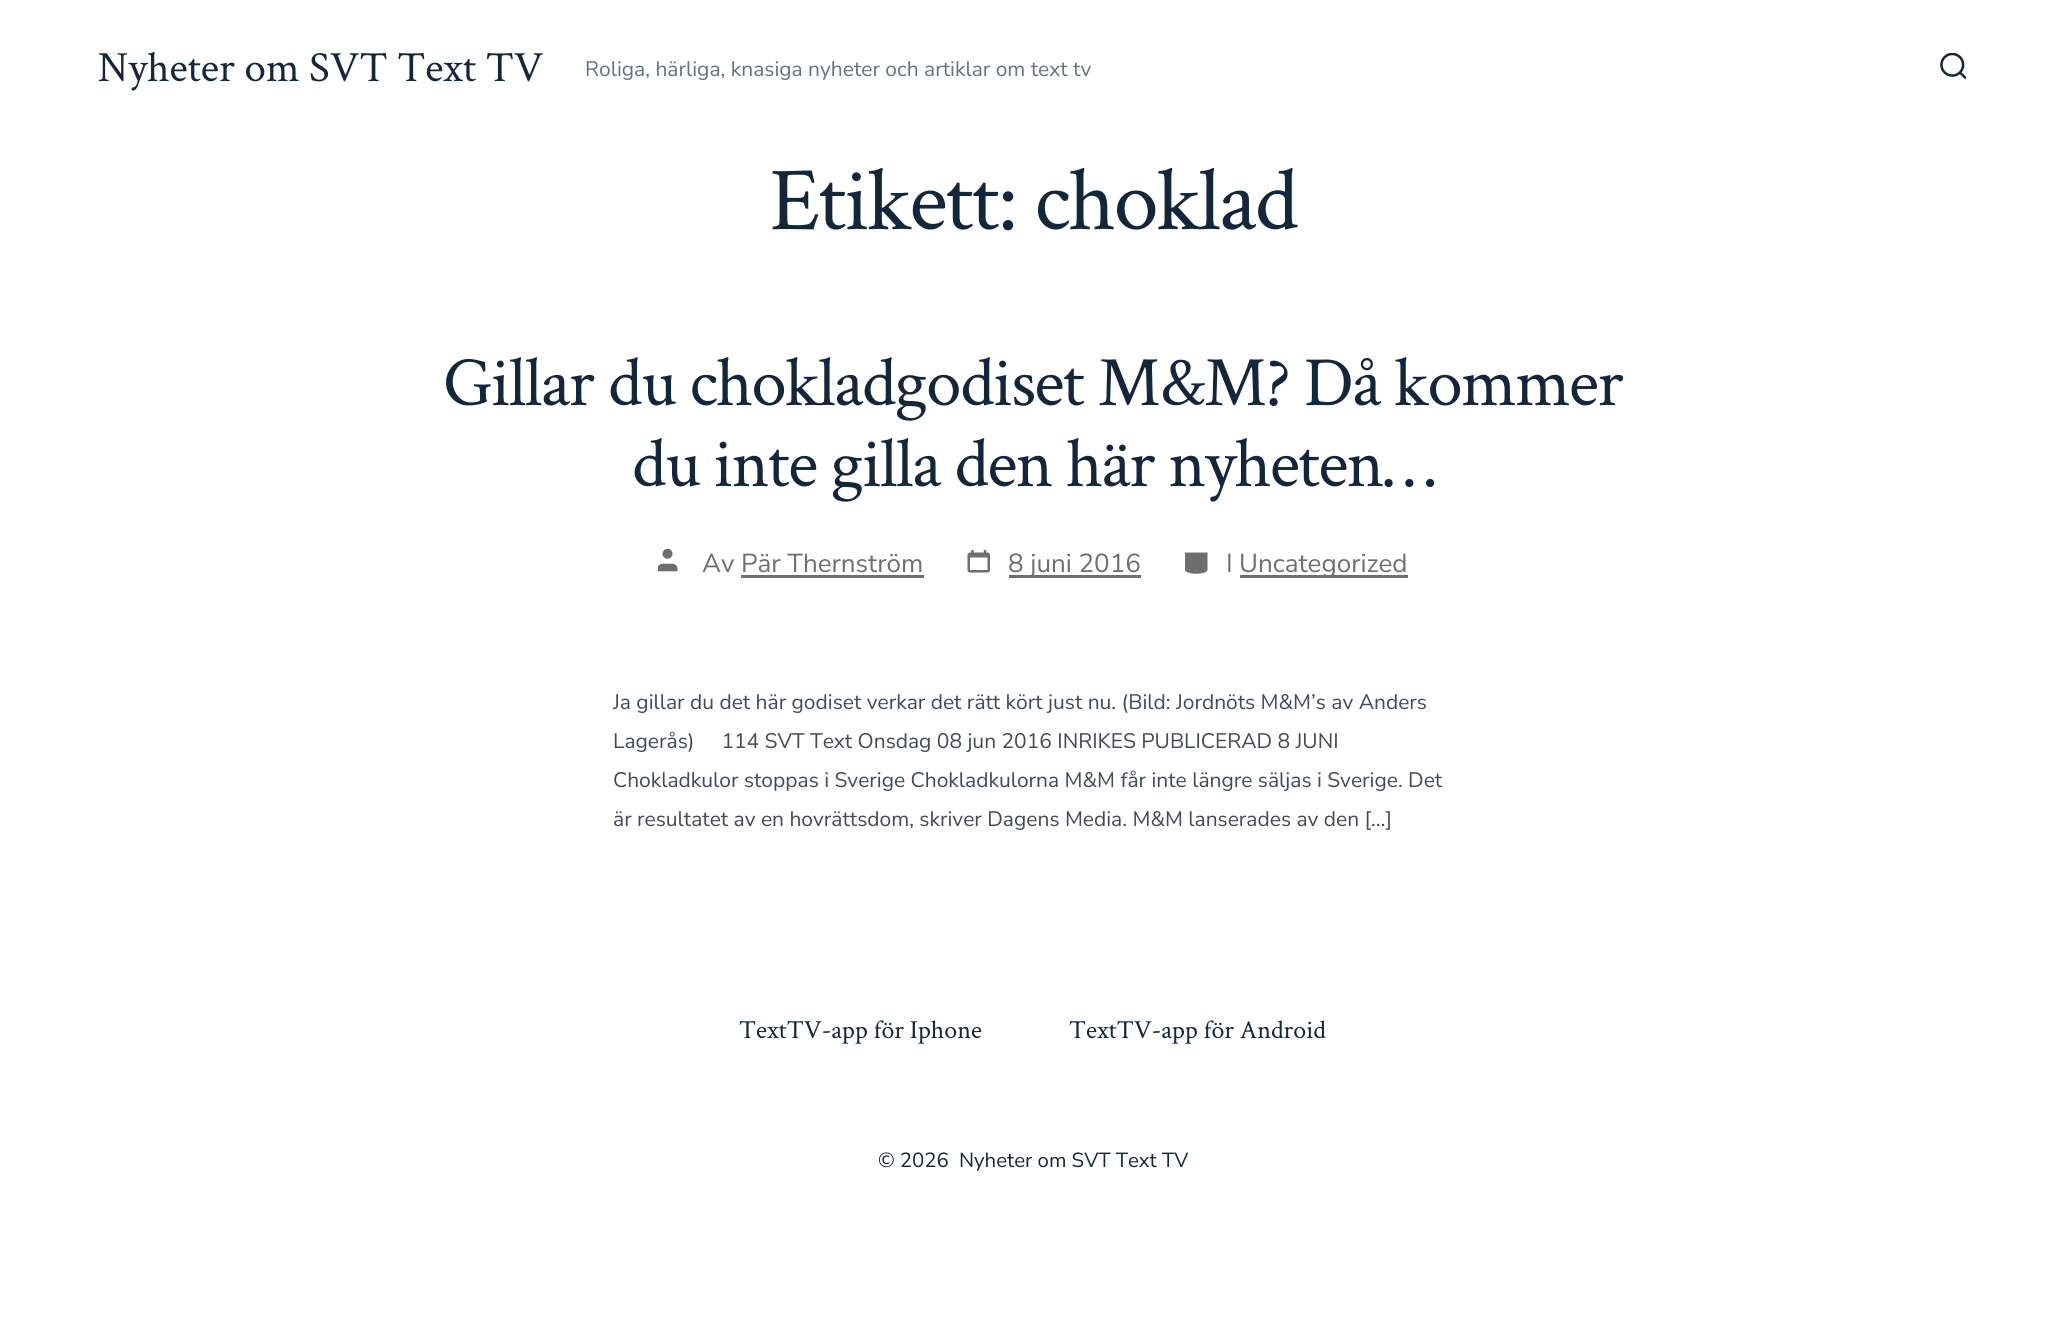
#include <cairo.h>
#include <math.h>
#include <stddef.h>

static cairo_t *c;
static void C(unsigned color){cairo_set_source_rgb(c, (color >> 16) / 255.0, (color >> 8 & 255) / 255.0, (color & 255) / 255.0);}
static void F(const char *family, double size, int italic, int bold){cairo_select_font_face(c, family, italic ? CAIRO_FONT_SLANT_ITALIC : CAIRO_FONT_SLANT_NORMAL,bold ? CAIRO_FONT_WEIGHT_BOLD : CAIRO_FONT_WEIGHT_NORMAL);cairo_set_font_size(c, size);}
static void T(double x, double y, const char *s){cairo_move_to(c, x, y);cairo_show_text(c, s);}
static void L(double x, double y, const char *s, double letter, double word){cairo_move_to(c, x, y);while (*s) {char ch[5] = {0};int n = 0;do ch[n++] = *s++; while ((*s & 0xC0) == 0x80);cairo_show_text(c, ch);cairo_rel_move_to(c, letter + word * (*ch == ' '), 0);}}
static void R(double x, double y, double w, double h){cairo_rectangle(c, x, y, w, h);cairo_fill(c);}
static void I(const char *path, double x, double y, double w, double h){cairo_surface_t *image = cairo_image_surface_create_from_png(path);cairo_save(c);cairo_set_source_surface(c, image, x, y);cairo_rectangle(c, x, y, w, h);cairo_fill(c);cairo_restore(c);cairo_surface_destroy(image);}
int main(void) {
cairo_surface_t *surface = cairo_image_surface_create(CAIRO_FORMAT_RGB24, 2064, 1323);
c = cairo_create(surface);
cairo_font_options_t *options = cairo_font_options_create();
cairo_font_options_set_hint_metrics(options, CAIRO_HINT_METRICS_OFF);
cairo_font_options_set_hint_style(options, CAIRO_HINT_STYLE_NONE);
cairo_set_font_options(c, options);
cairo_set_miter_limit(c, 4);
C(0xffffff);
cairo_paint(c);
F("Crimson Text",43,0,0);
C(0x13263a);
T(98,81,"Nyheter om SVT Text TV");
F("Nunito Sans",21,0,0);
C(0x66727f);
T(585,76,"Roliga, härliga, knasiga nyheter och artiklar om text tv");
I("1.png",1940,53,26,27);
F("Crimson Text",90.25,0,0);
C(0x13263a);
L(770,229,"Etikett: choklad",-1.75,0);
F("Crimson Text",70.75,0,0);
L(443,405,"Gillar du chokladgodiset M&M? Då kommer",-1.4,0);
L(632,486,"du inte gilla den här nyheten…",-1.4,0);
I("2.png",658,549,20,23);
F("Nunito Sans",26,0,0);
C(0x6e6e6e);
T(702,572,"Av Pär Thernström");
R(741,575,183,3);
I("3.png",967,550,23,23);
R(1009,575,132,3);
T(1008,572,"8 juni 2016");
I("4.png",1185,552,23,22);
T(1226,572,"I");
R(1240,575,168,3);
T(1239,572,"Uncategorized");
F("Nunito Sans",21,0,0);
C(0x434a56);
T(613,709,"Ja gillar du det här godiset verkar det rätt kört just nu. (Bild: Jordnöts M&M’s av Anders");
T(613,748,"Lagerås)     114 SVT Text Onsdag 08 jun 2016 INRIKES PUBLICERAD 8 JUNI");
T(613,787,"Chokladkulor stoppas i Sverige Chokladkulorna M&M får inte längre säljas i Sverige. Det");
T(613,826,"är resultatet av en hovrättsdom, skriver Dagens Media. M&M lanserades av den […]");
F("Crimson Text",26,0,0);
C(0x13263a);
T(739,1038,"TextTV-app för Iphone");
T(1069,1038,"TextTV-app för Android");
F("Nunito Sans",20.4,0,0);
T(878,1167,"© 2026");
T(959,1167,"Nyheter om SVT Text TV");
cairo_surface_write_to_png(surface, "o.png");
cairo_font_options_destroy(options);
cairo_destroy(c);
cairo_surface_destroy(surface);
return 0;
}
